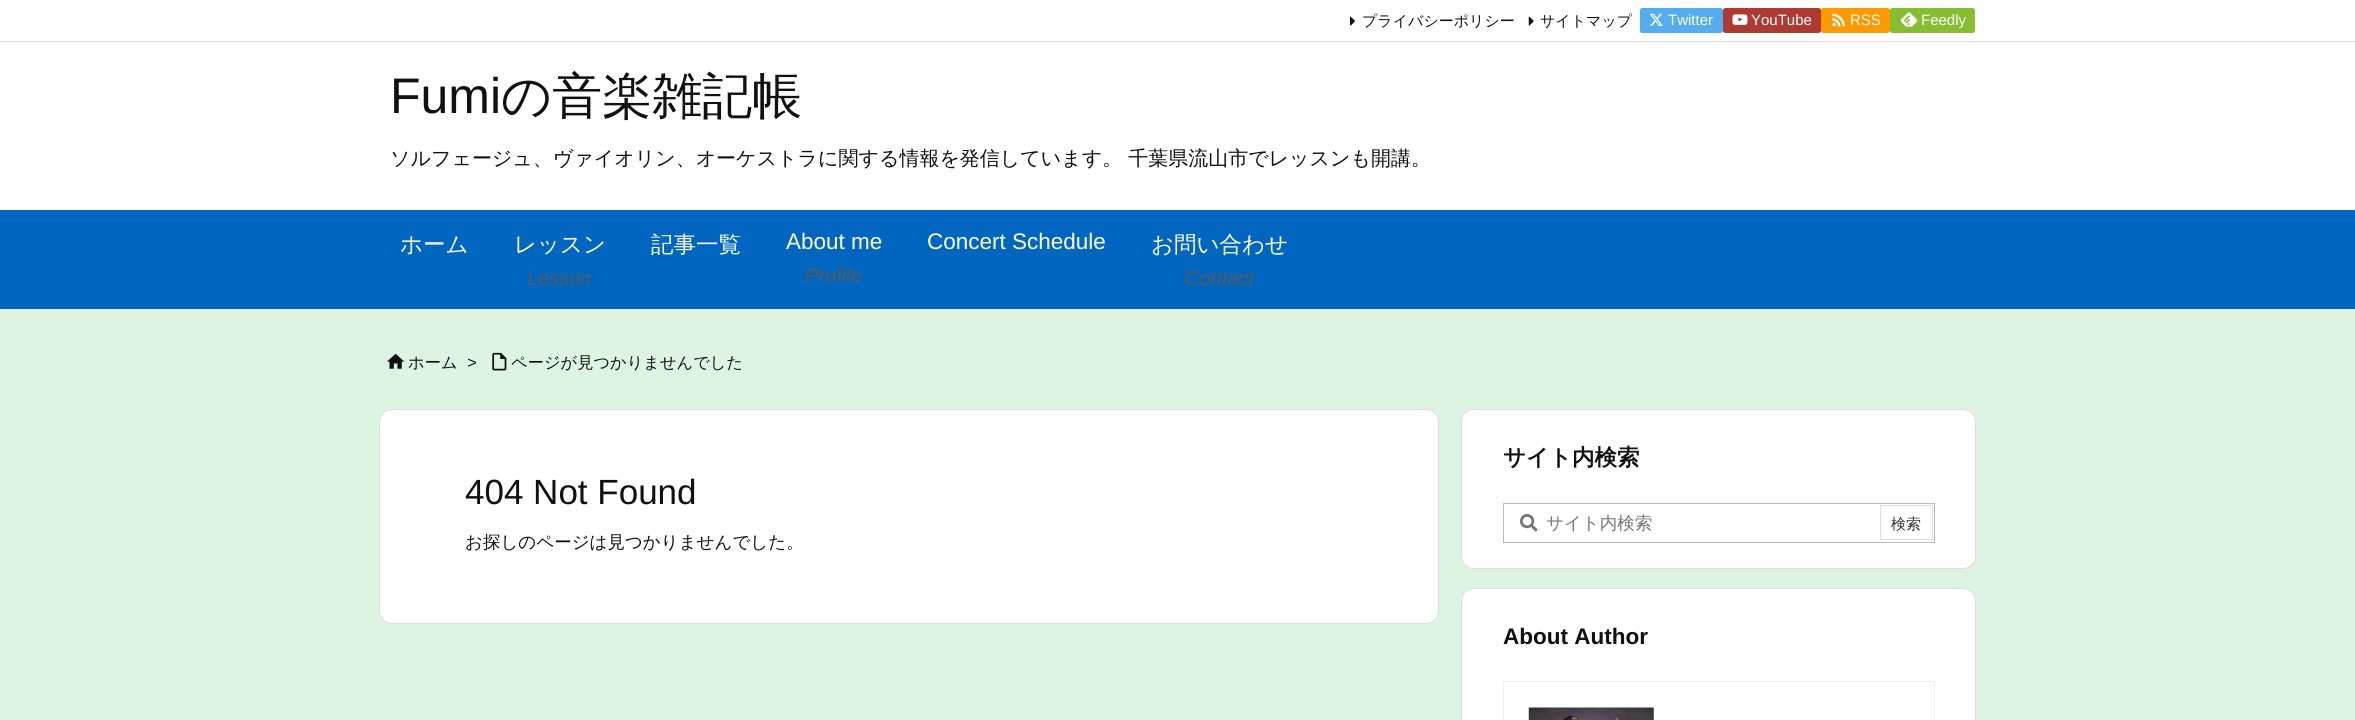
#include <cairo.h>
#include <math.h>
#include <stddef.h>

static cairo_t *c;
static void C(unsigned color){cairo_set_source_rgb(c, (color >> 16) / 255.0, (color >> 8 & 255) / 255.0, (color & 255) / 255.0);}
static void F(const char *family, double size, int italic, int bold){cairo_select_font_face(c, family, italic ? CAIRO_FONT_SLANT_ITALIC : CAIRO_FONT_SLANT_NORMAL,bold ? CAIRO_FONT_WEIGHT_BOLD : CAIRO_FONT_WEIGHT_NORMAL);cairo_set_font_size(c, size);}
static void T(double x, double y, const char *s){cairo_move_to(c, x, y);cairo_show_text(c, s);}
static void R(double x, double y, double w, double h){cairo_rectangle(c, x, y, w, h);cairo_fill(c);}
static void Q(double x, double y, double w, double h, double r){cairo_new_sub_path(c);cairo_arc(c, x + w - r, y + h - r, r, 0, M_PI / 2);cairo_arc(c, x + r, y + h - r, r, M_PI / 2, M_PI);cairo_arc(c, x + r, y + r, r, M_PI, 1.5 * M_PI);cairo_arc(c, x + w - r, y + r, r, 1.5 * M_PI, 2 * M_PI);cairo_close_path(c);}
static void I(const char *path, double x, double y, double w, double h){cairo_surface_t *image = cairo_image_surface_create_from_png(path);cairo_save(c);cairo_set_source_surface(c, image, x, y);cairo_rectangle(c, x, y, w, h);cairo_fill(c);cairo_restore(c);cairo_surface_destroy(image);}
int main(void) {
cairo_surface_t *surface = cairo_image_surface_create(CAIRO_FORMAT_RGB24, 2355, 720);
c = cairo_create(surface);
cairo_font_options_t *options = cairo_font_options_create();
cairo_font_options_set_hint_metrics(options, CAIRO_HINT_METRICS_OFF);
cairo_font_options_set_hint_style(options, CAIRO_HINT_STYLE_NONE);
cairo_set_font_options(c, options);
cairo_set_miter_limit(c, 4);
C(0xdef4e2);
cairo_paint(c);
C(0xffffff);
R(0,0,2355,210);
C(0xdddddd);
R(0,41,2355,1);
I("1.png",1350,16,5,10);
F("WenQuanYi Zen Hei Medium",15,0,0);
C(0x111111);
T(1362,26,"プライバシーポリシー");
I("2.png",1528,16,6,10);
T(1540,26,"サイトマップ");
C(0x55acee);
Q(1640,8,83,25,2.5);
cairo_fill(c);
I("3.png",1649,13,14,13);
F("Liberation Sans",15,0,0);
C(0xffffff);
T(1668,25,"Twitter");
C(0xae3a34);
Q(1723,8,98,25,2.5);
cairo_fill(c);
I("4.png",1732,14,16,11);
C(0xffffff);
T(1751,25,"YouTube");
C(0xfe9900);
Q(1821,8,69,25,2.5);
cairo_fill(c);
I("5.png",1832,13,13,14);
C(0xffffff);
T(1850,25,"RSS");
C(0x87bd33);
Q(1890,8,85,25,2.5);
cairo_fill(c);
I("6.png",1900,12,18,15);
C(0xffffff);
T(1921,25,"Feedly");
C(0x0066bf);
R(0,210,2355,99);
F("WenQuanYi Zen Hei Medium",22.5,0,0);
C(0xffffff);
T(400,252,"ホーム");
T(514,252,"レッスン");
F("Liberation Sans",20,1,0);
C(0x595959);
T(527,285,"Lesson");
F("WenQuanYi Zen Hei Medium",22.5,0,0);
C(0xffffff);
T(651,252,"記事一覧");
F("Liberation Sans",22.5,0,0);
T(786,249,"About me");
F("Liberation Sans",20,1,0);
C(0x595959);
T(805,282,"Profile");
F("Liberation Sans",22.5,0,0);
C(0xffffff);
T(927,249,"Concert Schedule");
F("WenQuanYi Zen Hei Medium",22.5,0,0);
T(1151,252,"お問い合わせ");
F("Liberation Sans",20,1,0);
C(0x595959);
T(1185,285,"Contact");
F("Liberation Sans",50,0,0);
C(0x111111);
T(390,113,"Fumi");
F("WenQuanYi Zen Hei Medium",50,0,0);
T(501,113,"の音楽雑記帳");
F("WenQuanYi Zen Hei Medium",20,0,0);
T(390,165,"ソルフェージュ、ヴァイオリン、オーケストラに関する情報を発信しています。 千葉県流山市でレッスンも開講。");
I("7.png",387,353,18,16);
F("WenQuanYi Zen Hei Medium",16.25,0,0);
T(408,368,"ホーム");
F("Liberation Sans",16.25,1,0);
T(467,368,">");
I("8.png",492,352,15,19);
F("WenQuanYi Zen Hei Medium",16.25,0,0);
T(511,368,"ページが見つかりませんでした");
C(0xffffff);
Q(379.5,409.5,1059,214,12.5);
cairo_fill_preserve(c);
C(0xdddddd);
cairo_set_line_width(c,1);
cairo_stroke(c);
F("Liberation Sans",35,0,0);
C(0x111111);
T(465,504,"404 Not Found");
F("WenQuanYi Zen Hei Medium",17.5,0,0);
T(465,548,"お探しのページは見つかりませんでした。");
C(0xffffff);
Q(1461.5,409.5,514,159,12.5);
cairo_fill_preserve(c);
C(0xdddddd);
cairo_stroke(c);
F("WenQuanYi Zen Hei",22.5,0,1);
C(0x111111);
T(1503,465,"サイト内検索");
cairo_rectangle(c,1503.5,503.5,431,39);
C(0xbbbbbb);
cairo_stroke(c);
I("9.png",1520,514,18,18);
F("WenQuanYi Zen Hei Medium",17.5,0,0);
C(0x757575);
T(1546,529,"サイト内検索");
cairo_rectangle(c,1880.5,505.5,52,34);
C(0xdddddd);
cairo_stroke(c);
F("WenQuanYi Zen Hei Medium",15,0,0);
C(0x333333);
T(1891,529,"検索");
C(0xffffff);
Q(1461.5,588.5,514,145,12.5);
cairo_fill_preserve(c);
C(0xdddddd);
cairo_stroke(c);
F("Liberation Sans",22.5,0,1);
C(0x111111);
T(1503,644,"About Author");
cairo_rectangle(c,1503.5,681.5,431,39);
C(0xeeeeee);
cairo_stroke(c);
I("10.png",1528,707,126,13);
cairo_surface_write_to_png(surface, "o.png");
cairo_font_options_destroy(options);
cairo_destroy(c);
cairo_surface_destroy(surface);
return 0;
}
